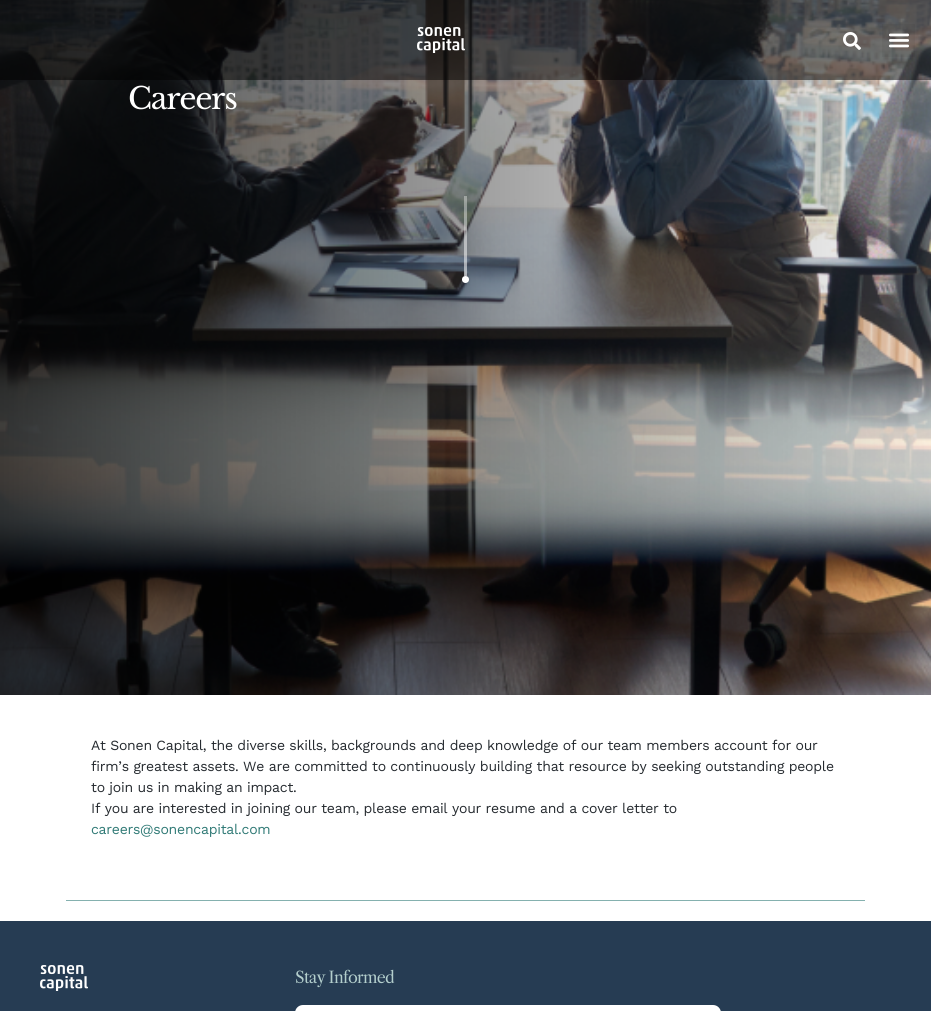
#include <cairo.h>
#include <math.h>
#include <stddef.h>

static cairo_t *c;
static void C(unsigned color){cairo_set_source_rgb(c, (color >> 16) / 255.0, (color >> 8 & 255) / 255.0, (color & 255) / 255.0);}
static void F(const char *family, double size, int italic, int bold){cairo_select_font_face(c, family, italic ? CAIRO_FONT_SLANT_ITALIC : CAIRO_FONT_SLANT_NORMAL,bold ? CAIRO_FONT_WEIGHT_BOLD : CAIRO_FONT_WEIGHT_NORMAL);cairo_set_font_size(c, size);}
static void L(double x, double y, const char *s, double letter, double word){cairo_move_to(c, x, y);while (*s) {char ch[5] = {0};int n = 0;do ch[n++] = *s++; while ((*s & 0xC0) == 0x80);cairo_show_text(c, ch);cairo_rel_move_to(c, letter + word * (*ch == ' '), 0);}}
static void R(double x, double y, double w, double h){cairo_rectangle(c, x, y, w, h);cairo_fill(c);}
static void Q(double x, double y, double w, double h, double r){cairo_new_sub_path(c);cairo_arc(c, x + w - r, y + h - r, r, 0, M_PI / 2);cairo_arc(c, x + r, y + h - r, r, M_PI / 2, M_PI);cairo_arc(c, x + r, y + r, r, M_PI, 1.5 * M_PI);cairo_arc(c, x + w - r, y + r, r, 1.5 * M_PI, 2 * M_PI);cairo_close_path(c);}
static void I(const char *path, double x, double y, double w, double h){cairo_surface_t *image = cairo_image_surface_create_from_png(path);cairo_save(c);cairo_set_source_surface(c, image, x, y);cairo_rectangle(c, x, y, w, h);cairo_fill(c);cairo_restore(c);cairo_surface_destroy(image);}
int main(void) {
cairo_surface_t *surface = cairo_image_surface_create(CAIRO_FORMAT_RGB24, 931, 1011);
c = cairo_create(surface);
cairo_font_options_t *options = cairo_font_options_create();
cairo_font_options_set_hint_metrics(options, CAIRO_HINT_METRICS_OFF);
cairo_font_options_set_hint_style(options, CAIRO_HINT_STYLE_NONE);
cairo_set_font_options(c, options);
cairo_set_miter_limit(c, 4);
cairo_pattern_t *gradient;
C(0xffffff);
cairo_paint(c);
I("4.png",0,0,931,695);
cairo_set_source_rgba(c,0,0,0,0.5);
R(0,0,931,80);
I("1.png",417,27,48,26);
I("2.png",843,32,18,18);
cairo_set_source_rgba(c,0,0,0,0.05);
R(882,24,33,33);
I("3.png",888,33,21,15);
F("Libre Baskerville",30,0,0);
C(0xffffff);
L(128,109,"Careers",-1.25,0);
cairo_set_source_rgba(c,1,1,1,0.35);
R(464,196,3,80);
gradient = cairo_pattern_create_linear(466,196,466,436);
cairo_pattern_add_color_stop_rgba(gradient,0,1,1,1,0);
cairo_pattern_add_color_stop_rgba(gradient,1,1,1,1,1);
cairo_set_source(c,gradient);
cairo_pattern_destroy(gradient);
R(464,196,3,80);
C(0xffffff);
cairo_new_path(c);
cairo_arc(c,465.5,279.5,3.5,0,2 * M_PI);
cairo_fill(c);
F("Work Sans",14,0,0);
C(0x252a2f);
L(91,750,"At Sonen Capital, the diverse skills, backgrounds and deep knowledge of our team members account for our",-.23,0);
L(91,771,"firm’s greatest assets. We are committed to continuously building that resource by seeking outstanding people",-.23,0);
L(91,792,"to join us in making an impact.",-.23,0);
L(91,813,"If you are interested in joining our team, please email your resume and a cover letter to",-.23,0);
C(0x2f7975);
L(91,834,"careers@sonencapital.com",-.23,0);
C(0x85b1af);
R(66,900,799,1);
C(0x263c53);
R(0,921,931,90);
I("5.png",40,965,48,26);
F("Libre Caslon Text",16,0,0);
C(0xb3cecc);
L(295,983,"Stay Informed",-.7,0);
C(0xffffff);
Q(295,1005,426,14,8);
cairo_fill(c);
cairo_surface_write_to_png(surface, "o.png");
cairo_font_options_destroy(options);
cairo_destroy(c);
cairo_surface_destroy(surface);
return 0;
}
